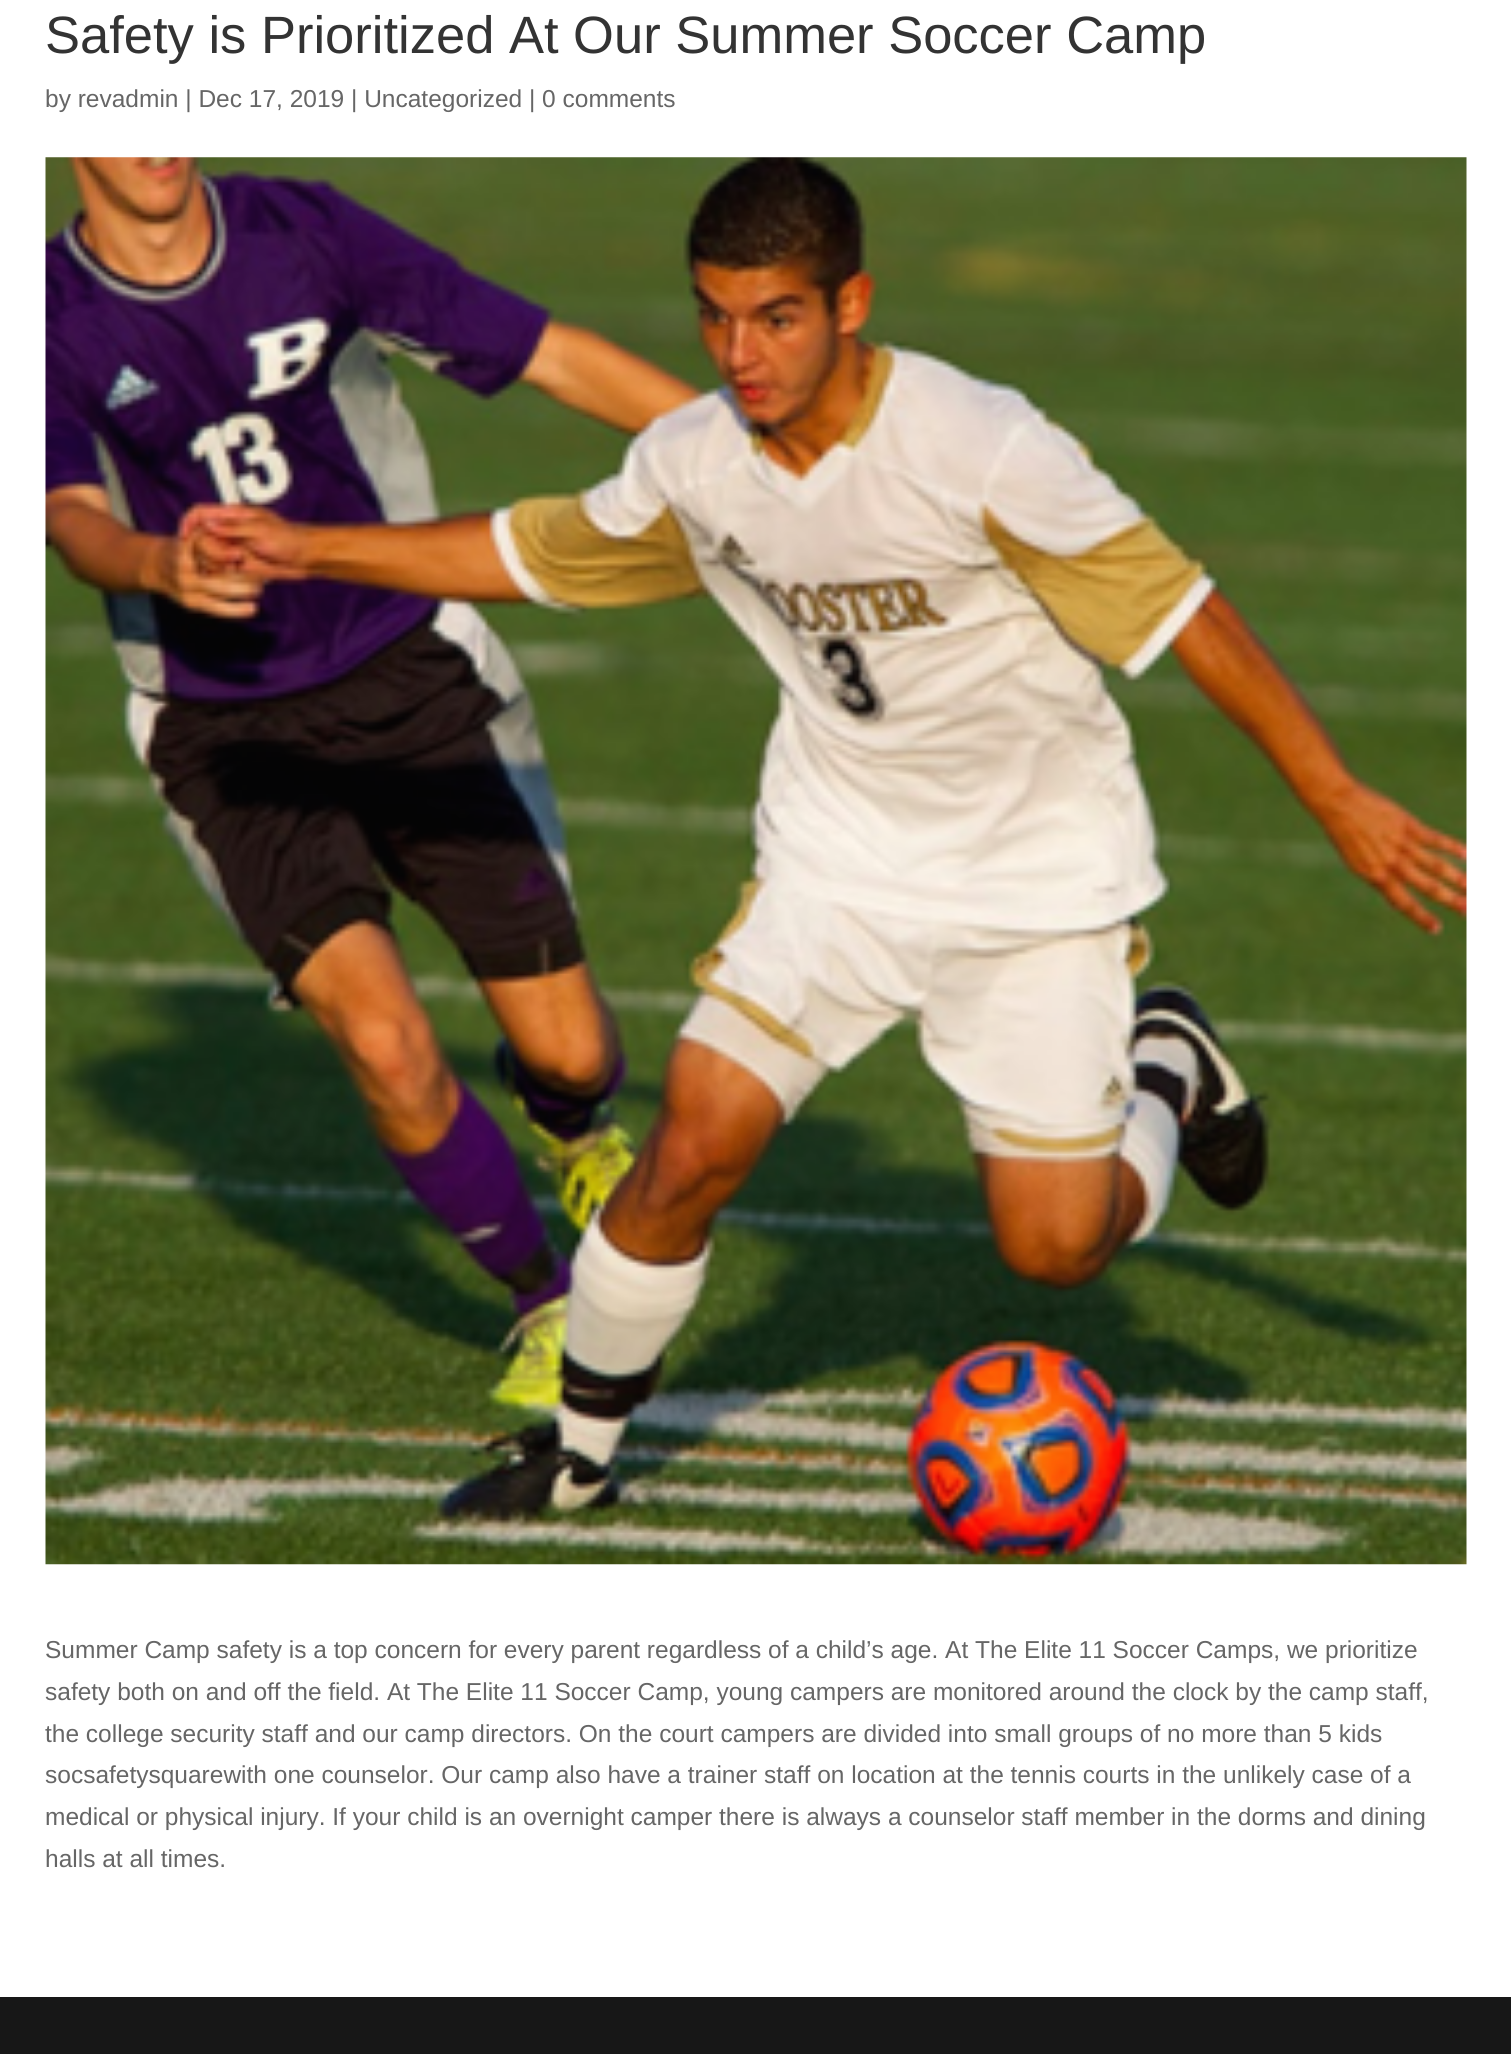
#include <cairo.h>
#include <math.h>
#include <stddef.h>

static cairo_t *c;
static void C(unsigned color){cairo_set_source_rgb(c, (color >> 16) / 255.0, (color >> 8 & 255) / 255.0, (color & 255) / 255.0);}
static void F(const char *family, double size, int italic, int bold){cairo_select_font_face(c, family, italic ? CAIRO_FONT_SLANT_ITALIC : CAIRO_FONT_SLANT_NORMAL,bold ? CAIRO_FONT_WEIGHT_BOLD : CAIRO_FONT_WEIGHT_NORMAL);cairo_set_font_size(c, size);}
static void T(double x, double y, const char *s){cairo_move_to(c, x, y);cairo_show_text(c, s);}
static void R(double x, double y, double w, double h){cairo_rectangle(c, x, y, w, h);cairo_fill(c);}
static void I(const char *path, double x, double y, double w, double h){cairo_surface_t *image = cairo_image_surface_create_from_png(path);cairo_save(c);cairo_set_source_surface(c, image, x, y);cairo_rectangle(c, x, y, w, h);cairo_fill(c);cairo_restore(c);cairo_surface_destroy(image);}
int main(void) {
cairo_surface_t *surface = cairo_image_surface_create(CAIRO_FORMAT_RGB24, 1511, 2054);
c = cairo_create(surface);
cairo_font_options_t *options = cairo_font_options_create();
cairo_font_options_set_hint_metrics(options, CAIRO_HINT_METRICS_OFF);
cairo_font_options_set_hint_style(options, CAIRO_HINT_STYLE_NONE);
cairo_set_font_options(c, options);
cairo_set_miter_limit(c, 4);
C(0xffffff);
cairo_paint(c);
F("Liberation Sans",52.5,0,0);
C(0x333333);
T(45,53,"Safety is Prioritized At Our Summer Soccer Camp");
F("Liberation Sans",24.5,0,0);
C(0x666666);
T(45,107,"by revadmin | Dec 17, 2019 | Uncategorized | 0 comments");
I("1.png",45,157,1422,1408);
T(45,1658,"Summer Camp safety is a top concern for every parent regardless of a child’s age. At The Elite 11 Soccer Camps, we prioritize");
T(45,1700,"safety both on and off the field. At The Elite 11 Soccer Camp, young campers are monitored around the clock by the camp staff,");
T(45,1742,"the college security staff and our camp directors. On the court campers are divided into small groups of no more than 5 kids");
T(45,1783,"socsafetysquarewith one counselor. Our camp also have a trainer staff on location at the tennis courts in the unlikely case of a");
T(45,1825,"medical or physical injury. If your child is an overnight camper there is always a counselor staff member in the dorms and dining");
T(45,1867,"halls at all times.");
C(0x171717);
R(0,1997,1511,57);
cairo_surface_write_to_png(surface, "o.png");
cairo_font_options_destroy(options);
cairo_destroy(c);
cairo_surface_destroy(surface);
return 0;
}
